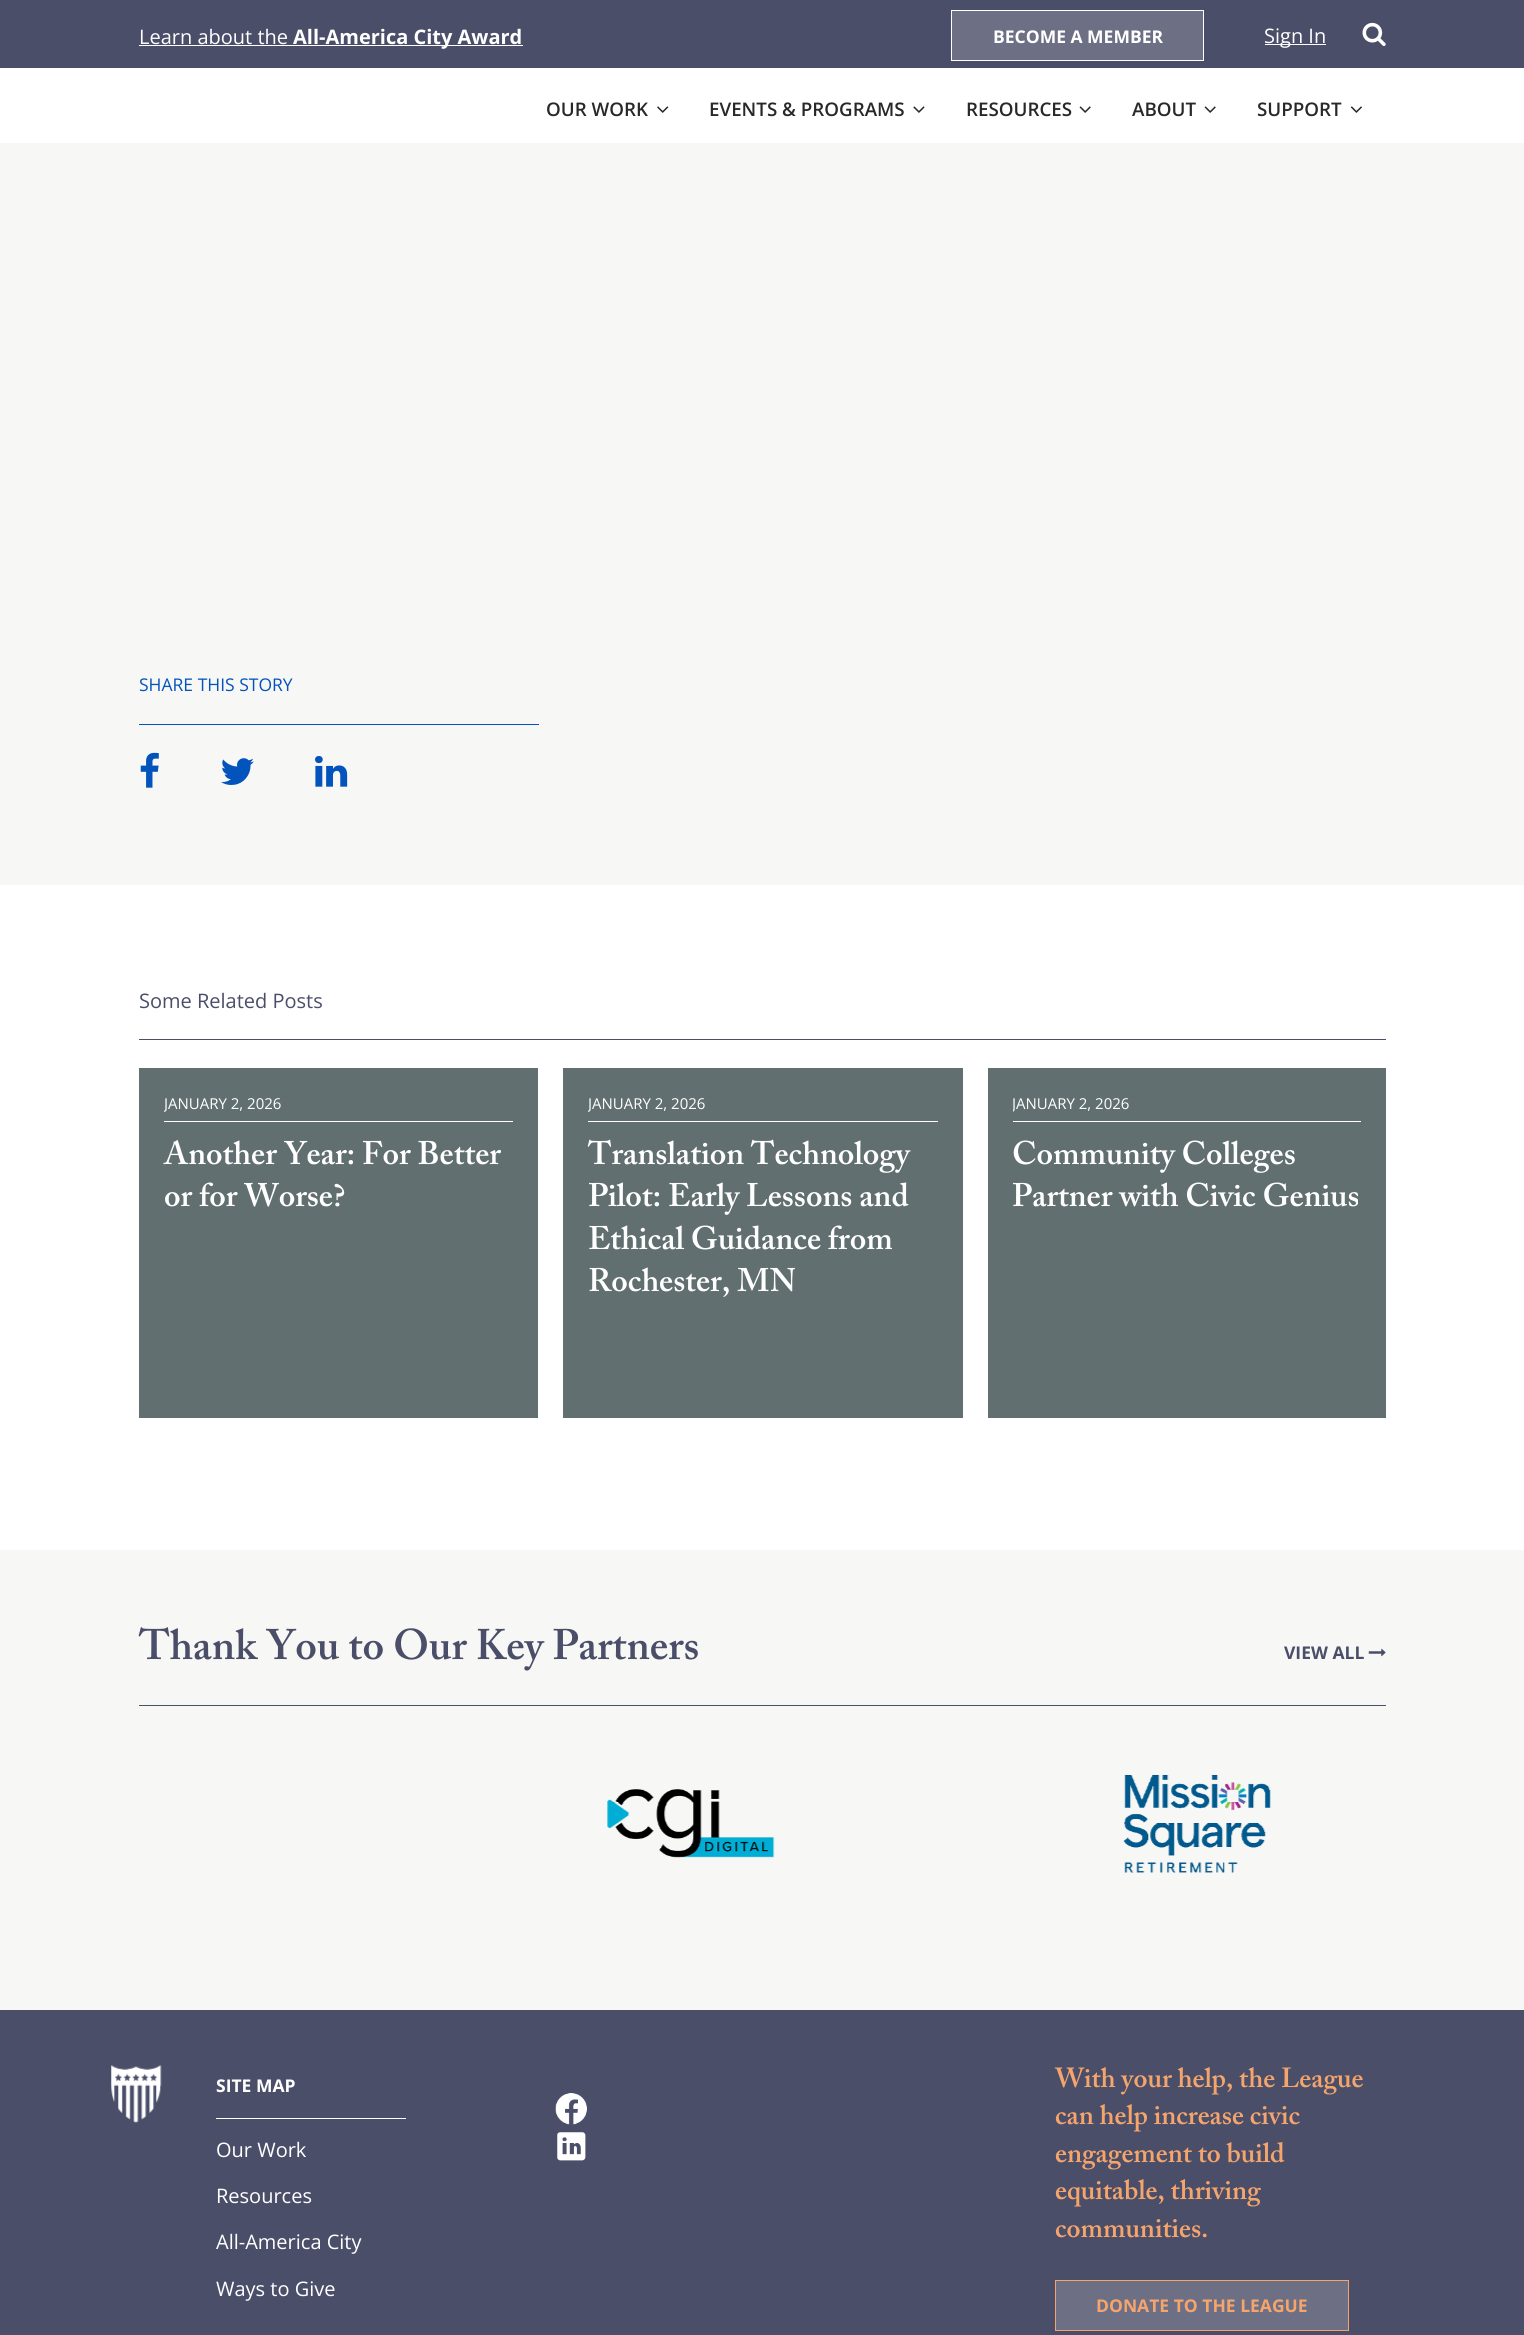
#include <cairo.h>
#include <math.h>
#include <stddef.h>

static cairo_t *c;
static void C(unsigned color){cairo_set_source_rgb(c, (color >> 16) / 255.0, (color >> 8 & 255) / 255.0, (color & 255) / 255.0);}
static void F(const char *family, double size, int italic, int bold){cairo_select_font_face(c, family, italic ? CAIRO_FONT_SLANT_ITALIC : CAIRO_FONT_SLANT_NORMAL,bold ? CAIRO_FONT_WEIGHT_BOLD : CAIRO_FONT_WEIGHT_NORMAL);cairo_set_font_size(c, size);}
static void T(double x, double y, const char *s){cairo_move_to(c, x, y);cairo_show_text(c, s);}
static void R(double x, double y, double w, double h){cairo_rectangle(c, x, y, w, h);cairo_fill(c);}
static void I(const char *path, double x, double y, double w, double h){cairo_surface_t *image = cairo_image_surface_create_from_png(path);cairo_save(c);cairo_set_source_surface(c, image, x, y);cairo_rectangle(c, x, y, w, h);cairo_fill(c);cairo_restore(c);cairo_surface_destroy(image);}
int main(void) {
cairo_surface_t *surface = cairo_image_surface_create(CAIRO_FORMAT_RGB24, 1524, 2335);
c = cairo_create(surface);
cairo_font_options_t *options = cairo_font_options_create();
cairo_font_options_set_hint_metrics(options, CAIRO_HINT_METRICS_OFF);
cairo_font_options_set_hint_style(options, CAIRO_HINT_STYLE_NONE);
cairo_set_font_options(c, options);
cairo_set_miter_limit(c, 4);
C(0xf7f7f5);
cairo_paint(c);
C(0x4a4e69);
R(0,0,1524,68);
F("Open Sans",20,0,0);
C(0xffffff);
T(139,44,"Learn about the");
R(139,45,384,1);
F("Open Sans",20,0,1);
T(293,44,"All-America City Award");
C(0x6d6f85);
cairo_rectangle(c,951.5,10.5,252,50);
cairo_fill_preserve(c);
C(0xffffff);
cairo_set_line_width(c,1);
cairo_stroke(c);
F("Open Sans",17.5,0,1);
T(993,43,"BECOME A MEMBER");
R(1265,44,61,1);
F("Open Sans",20,0,0);
T(1264,43,"Sign In");
I("1.png",1362,22,24,24);
R(0,68,1524,75);
F("Open Sans SemiBold",18.75,0,0);
C(0x282829);
T(546,116,"OUR WORK");
I("2.png",657,106,12,7);
T(709,116,"EVENTS & PROGRAMS");
I("3.png",913,106,12,7);
T(966,116,"RESOURCES");
I("4.png",1079,106,12,7);
T(1132,116,"ABOUT");
I("4.png",1204,106,12,7);
T(1257,116,"SUPPORT");
I("5.png",1350,106,12,7);
C(0x0253bc);
R(139,724,400,1);
F("Open Sans",17.5,0,0);
T(139,691,"SHARE THIS STORY");
I("6.png",140,752,19,36);
I("7.png",221,758,33,27);
I("8.png",315,756,33,31);
C(0xffffff);
R(0,885,1524,665);
C(0x4a4e69);
R(139,1039,1247,1);
F("Open Sans",20,0,0);
T(139,1008,"Some Related Posts");
C(0x626f70);
R(139,1068,399,350);
C(0xffffff);
R(164,1121,349,1);
cairo_save(c);
cairo_rectangle(c,164,1093,349,28);
cairo_clip(c);
F("Open Sans",15,0,0);
T(164,1109,"JANUARY 2, 2026");
cairo_restore(c);
F("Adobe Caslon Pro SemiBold",32.5,0,0);
T(164,1164,"Another Year: For Better");
T(164,1206,"or for Worse?");
C(0x626f70);
R(563,1068,400,350);
C(0xffffff);
R(588,1121,350,1);
cairo_save(c);
cairo_rectangle(c,588,1093,350,28);
cairo_clip(c);
F("Open Sans",15,0,0);
T(588,1109,"JANUARY 2, 2026");
cairo_restore(c);
T(588,1164,"Translation Technology");
T(588,1206,"Pilot: Early Lessons and");
T(588,1249,"Ethical Guidance from");
T(588,1291,"Rochester, MN");
C(0x626f70);
R(988,1068,398,350);
C(0xffffff);
R(1013,1121,348,1);
cairo_save(c);
cairo_rectangle(c,1013,1093,348,28);
cairo_clip(c);
F("Open Sans",15,0,0);
T(1012,1109,"JANUARY 2, 2026");
cairo_restore(c);
T(1012,1164,"Community Colleges");
T(1012,1206,"Partner with Civic Genius");
C(0x485268);
R(139,1705,1247,1);
F("Adobe Caslon Pro SemiBold",42.5,0,0);
C(0x4a4e69);
T(139,1659,"Thank You to Our Key Partners");
F("Open Sans",17.5,0,1);
T(1284,1659,"VIEW ALL");
I("9.png",1368,1648,18,9);
I("10.png",607,1789,168,69);
I("11.png",1123,1774,148,99);
R(0,2010,1524,325);
I("12.png",111,2064,51,59);
C(0xffffff);
R(216,2118,190,1);
T(216,2092,"SITE MAP");
F("Open Sans",20,0,0);
T(216,2157,"Our Work");
T(216,2203,"Resources");
T(216,2249,"All-America City");
T(216,2296,"Ways to Give");
I("13.png",555,2093,32,32);
I("14.png",557,2132,29,29);
F("Adobe Caslon Pro SemiBold",27.5,0,0);
C(0xf5a56c);
T(1055,2087,"With your help, the League");
T(1055,2124,"can help increase civic");
T(1055,2162,"engagement to build");
T(1055,2199,"equitable, thriving");
T(1055,2237,"communities.");
C(0x6d6f85);
cairo_rectangle(c,1055.5,2280.5,293,50);
cairo_fill_preserve(c);
C(0xf5a56c);
cairo_stroke(c);
F("Open Sans",17.5,0,1);
T(1096,2312,"DONATE TO THE LEAGUE");
cairo_surface_write_to_png(surface, "o.png");
cairo_font_options_destroy(options);
cairo_destroy(c);
cairo_surface_destroy(surface);
return 0;
}
